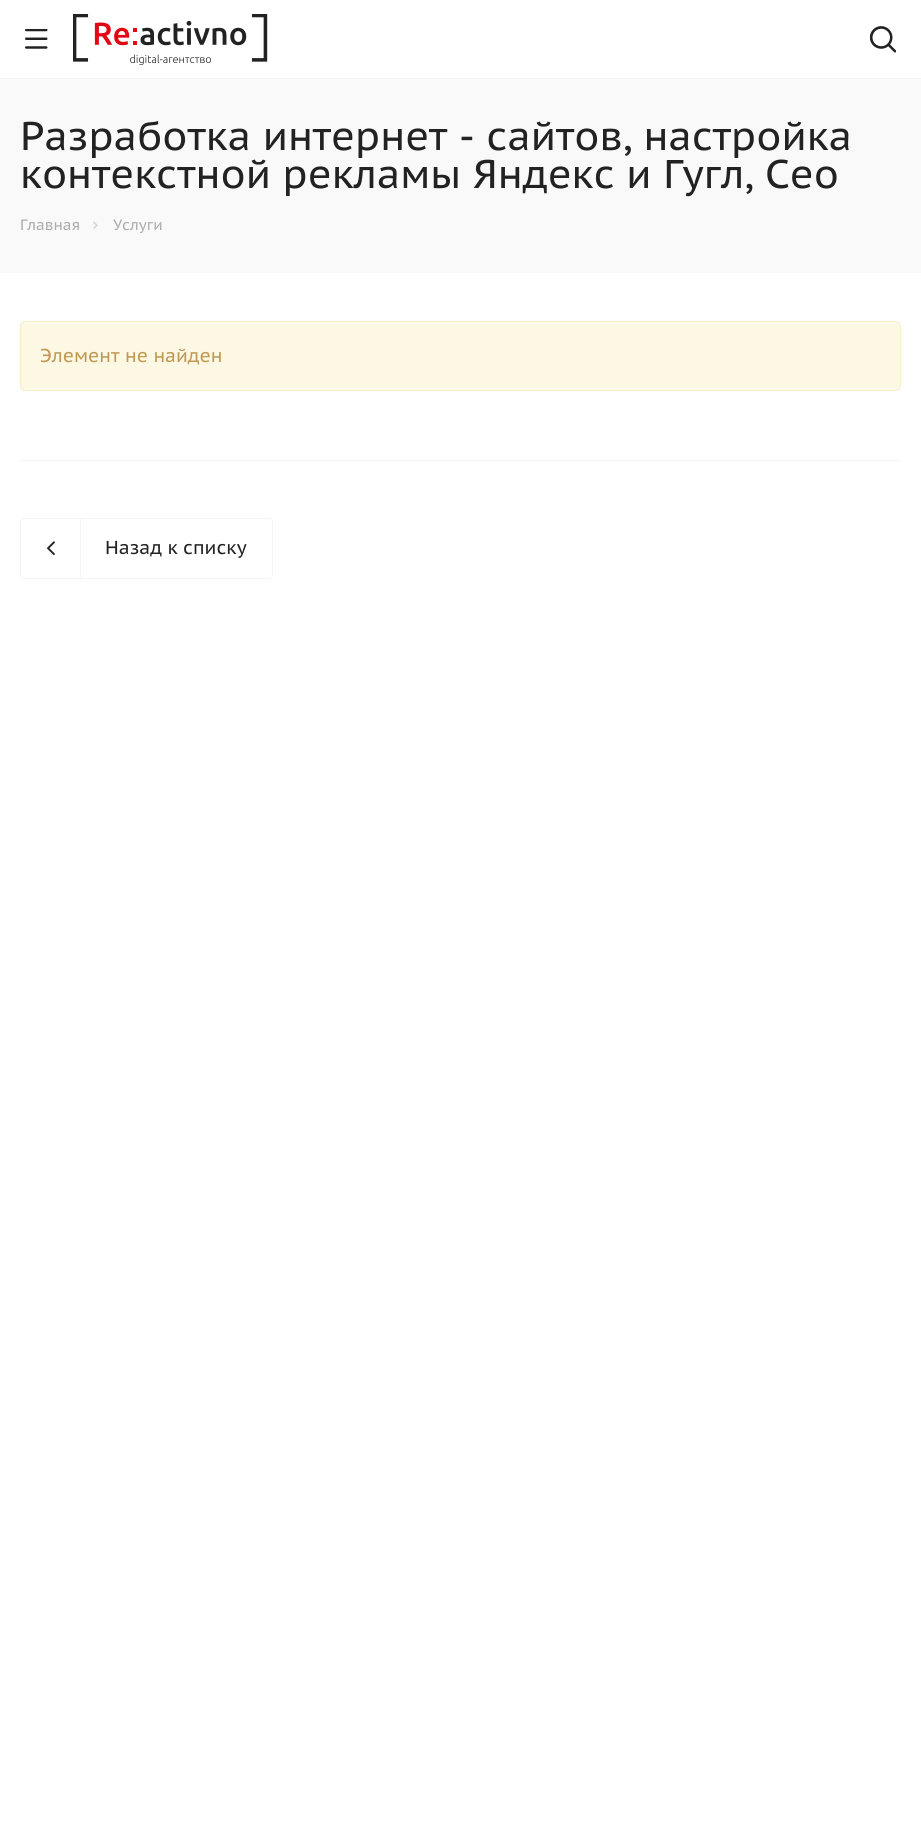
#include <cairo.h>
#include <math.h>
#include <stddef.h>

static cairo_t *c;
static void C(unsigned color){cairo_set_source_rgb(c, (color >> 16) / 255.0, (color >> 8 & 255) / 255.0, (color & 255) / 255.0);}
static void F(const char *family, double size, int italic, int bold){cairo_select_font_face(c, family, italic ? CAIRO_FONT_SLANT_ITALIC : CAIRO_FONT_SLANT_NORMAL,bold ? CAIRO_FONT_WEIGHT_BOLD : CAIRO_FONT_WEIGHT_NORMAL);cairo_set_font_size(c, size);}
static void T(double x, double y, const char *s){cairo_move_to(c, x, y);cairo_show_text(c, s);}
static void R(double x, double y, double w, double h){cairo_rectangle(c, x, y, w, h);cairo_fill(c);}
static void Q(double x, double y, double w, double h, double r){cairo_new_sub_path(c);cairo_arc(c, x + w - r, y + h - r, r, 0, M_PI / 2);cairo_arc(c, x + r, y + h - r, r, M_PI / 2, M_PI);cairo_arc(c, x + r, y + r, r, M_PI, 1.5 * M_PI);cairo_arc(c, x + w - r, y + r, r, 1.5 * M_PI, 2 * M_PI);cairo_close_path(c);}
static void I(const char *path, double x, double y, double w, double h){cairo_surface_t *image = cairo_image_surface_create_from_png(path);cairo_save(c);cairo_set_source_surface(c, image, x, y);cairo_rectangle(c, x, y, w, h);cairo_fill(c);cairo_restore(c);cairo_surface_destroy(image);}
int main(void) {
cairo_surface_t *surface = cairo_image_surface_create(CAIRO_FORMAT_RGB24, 921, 1840);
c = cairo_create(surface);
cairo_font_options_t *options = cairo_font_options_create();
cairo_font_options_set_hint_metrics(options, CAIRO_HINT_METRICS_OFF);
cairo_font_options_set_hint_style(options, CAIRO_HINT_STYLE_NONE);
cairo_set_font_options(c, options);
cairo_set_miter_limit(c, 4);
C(0xffffff);
cairo_paint(c);
C(0xf5f5f5);
R(0,78,921,1);
I("1.png",25,29,23,20);
I("2.png",73,14,195,51);
I("3.png",870,26,26,27);
C(0xf9f9f9);
R(0,79,921,194);
F("PT Sans Caption",40,0,0);
C(0x222222);
T(20,150,"Разработка интернет - сайтов, настройка");
T(20,188,"контекстной рекламы Яндекс и Гугл, Сео");
F("PT Sans Caption",15,0,0);
C(0xadadad);
T(20,230,"Главная");
I("4.png",93,221,5,8);
T(113,230,"Услуги");
C(0xfcf8e3);
Q(20.5,321.5,880,69,4.5);
cairo_fill_preserve(c);
C(0xfaebcc);
cairo_set_line_width(c,1);
cairo_stroke(c);
F("PT Sans Caption",18.75,0,0);
C(0xc09853);
T(40,362,"Элемент не найден");
C(0xf5f5f5);
R(20,460,881,1);
Q(20.5,518.5,252,60,3.5);
cairo_stroke(c);
I("5.png",46,541,9,15);
R(80,519,1,59);
C(0x222222);
T(105,554,"Назад к списку");
cairo_surface_write_to_png(surface, "o.png");
cairo_font_options_destroy(options);
cairo_destroy(c);
cairo_surface_destroy(surface);
return 0;
}
